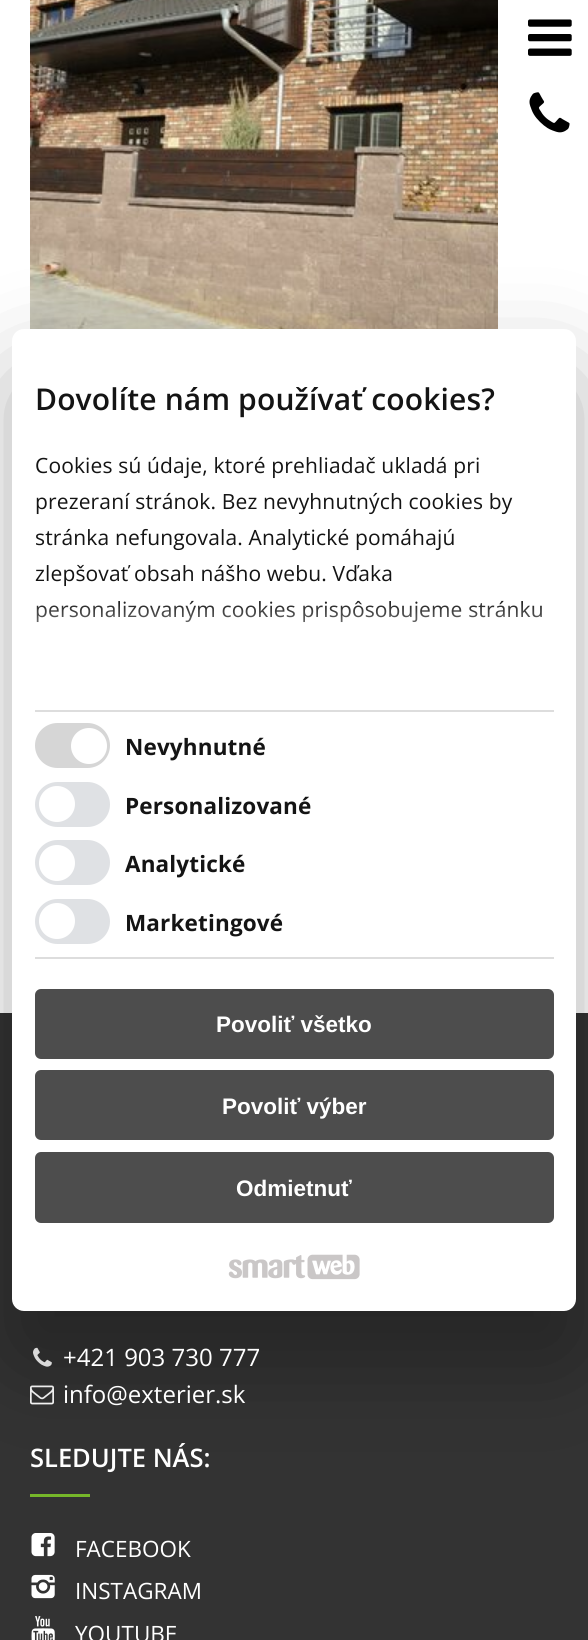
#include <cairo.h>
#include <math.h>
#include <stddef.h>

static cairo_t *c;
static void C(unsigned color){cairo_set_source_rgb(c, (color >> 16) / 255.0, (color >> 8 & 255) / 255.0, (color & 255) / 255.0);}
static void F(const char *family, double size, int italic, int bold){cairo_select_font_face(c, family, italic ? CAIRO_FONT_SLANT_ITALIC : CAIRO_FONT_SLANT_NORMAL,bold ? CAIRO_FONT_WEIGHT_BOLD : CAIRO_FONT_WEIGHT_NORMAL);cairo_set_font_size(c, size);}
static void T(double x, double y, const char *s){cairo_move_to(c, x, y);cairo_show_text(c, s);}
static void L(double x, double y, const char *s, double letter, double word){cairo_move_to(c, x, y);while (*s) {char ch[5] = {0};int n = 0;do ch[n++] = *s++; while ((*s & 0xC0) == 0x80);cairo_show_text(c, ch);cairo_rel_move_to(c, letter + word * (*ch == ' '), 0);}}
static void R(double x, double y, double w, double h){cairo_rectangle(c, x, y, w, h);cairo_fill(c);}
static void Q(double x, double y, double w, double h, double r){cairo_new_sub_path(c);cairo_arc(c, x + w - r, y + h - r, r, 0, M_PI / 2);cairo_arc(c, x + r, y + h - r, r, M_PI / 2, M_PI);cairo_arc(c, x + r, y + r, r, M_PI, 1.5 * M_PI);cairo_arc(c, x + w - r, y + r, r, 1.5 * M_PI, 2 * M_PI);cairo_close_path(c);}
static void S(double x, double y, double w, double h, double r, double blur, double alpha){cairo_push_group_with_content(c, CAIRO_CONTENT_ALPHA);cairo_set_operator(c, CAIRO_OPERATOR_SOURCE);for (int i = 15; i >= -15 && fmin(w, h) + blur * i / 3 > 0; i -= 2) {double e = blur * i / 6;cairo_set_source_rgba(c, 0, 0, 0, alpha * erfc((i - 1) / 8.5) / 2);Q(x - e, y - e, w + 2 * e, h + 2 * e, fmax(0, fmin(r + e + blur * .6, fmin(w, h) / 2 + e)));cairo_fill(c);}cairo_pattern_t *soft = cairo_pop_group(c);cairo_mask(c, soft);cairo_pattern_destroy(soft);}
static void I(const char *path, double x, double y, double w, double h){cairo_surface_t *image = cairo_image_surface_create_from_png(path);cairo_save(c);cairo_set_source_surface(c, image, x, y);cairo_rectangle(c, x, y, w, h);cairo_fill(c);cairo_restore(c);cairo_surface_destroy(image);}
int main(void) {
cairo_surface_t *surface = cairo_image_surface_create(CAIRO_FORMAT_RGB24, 588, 1640);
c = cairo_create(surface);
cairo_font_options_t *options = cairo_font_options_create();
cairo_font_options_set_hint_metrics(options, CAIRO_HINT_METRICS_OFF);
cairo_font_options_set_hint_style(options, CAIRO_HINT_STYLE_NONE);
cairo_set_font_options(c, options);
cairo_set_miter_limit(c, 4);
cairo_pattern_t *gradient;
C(0xffffff);
cairo_paint(c);
I("1.png",528,19,44,37);
I("2.png",529,92,41,41);
I("3.png",30,0,468,329);
C(0x333333);
R(0,1013,588,627);
I("6.png",33,1347,19,20);
I("7.png",30,1385,24,20);
C(0x76b72a);
R(30,1494,60,3);
C(0x000000);
S(12,377,564,982,12,51,.3);
C(0xffffff);
Q(12,329,564,982,12);
cairo_fill(c);
F("Open Sans SemiBold",30,0,0);
C(0x141414);
L(35,410,"Dovolíte nám používať cookies?",.15,0);
F("Open Sans",21,0,0);
L(35,473,"Cookies sú údaje, ktoré prehliadač ukladá pri",.15,0);
L(35,509,"prezeraní stránok. Bez nevyhnutných cookies by",.15,0);
L(35,545,"stránka nefungovala. Analytické pomáhajú",.15,0);
L(35,581,"zlepšovať obsah nášho webu. Vďaka",.15,0);
L(35,617,"personalizovaným cookies prispôsobujeme stránku",.15,0);
gradient = cairo_pattern_create_linear(294,710,294,598);
cairo_pattern_add_color_stop_rgba(gradient,0,1,1,1,1);
cairo_pattern_add_color_stop_rgba(gradient,.5,1,1,1,.8);
cairo_pattern_add_color_stop_rgba(gradient,1,1,1,1,0);
cairo_set_source(c,gradient);
cairo_pattern_destroy(gradient);
R(36,601,506,22);
C(0xdddddd);
R(35,710,519,2);
R(35,957,519,2);
C(0xd6d6d6);
Q(35,723,75,45,22.5);
cairo_fill(c);
C(0xffffff);
cairo_arc(c,89,746,18,0,2 * M_PI);
cairo_fill(c);
F("Open Sans",22.5,0,1);
C(0x141414);
L(125,755,"Nevyhnutné",.15,0);
C(0xdfe1e4);
Q(35,782,75,45,22.5);
cairo_fill(c);
C(0xffffff);
cairo_arc(c,57,804,18,0,2 * M_PI);
cairo_fill(c);
C(0x141414);
L(125,814,"Personalizované",.15,0);
C(0xdfe1e4);
Q(35,840,75,45,22.5);
cairo_fill(c);
C(0xffffff);
cairo_arc(c,57,863,18,0,2 * M_PI);
cairo_fill(c);
C(0x141414);
L(125,872,"Analytické",.15,0);
C(0xdfe1e4);
Q(35,899,75,45,22.5);
cairo_fill(c);
C(0xffffff);
cairo_arc(c,57,921,18,0,2 * M_PI);
cairo_fill(c);
C(0x141414);
L(125,931,"Marketingové",.15,0);
C(0x4d4d4d);
Q(35,989,519,70,6);
cairo_fill(c);
F("Liberation Sans",22.5,0,1);
C(0xffffff);
T(216,1032,"Povoliť všetko");
C(0x4d4d4d);
Q(35,1070,519,70,6);
cairo_fill(c);
C(0xffffff);
T(222,1114,"Povoliť výber");
C(0x4d4d4d);
Q(35,1152,519,71,6);
cairo_fill(c);
C(0xffffff);
T(236,1196,"Odmietnuť");
I("4.png",228,1255,78,24);
I("5.png",307,1254,53,26);
F("Open Sans",24,0,0);
T(63,1366,"+421 903 730 777");
T(63,1403,"info@exterier.sk");
F("Open Sans SemiBold",25.5,0,0);
T(30,1467,"SLEDUJTE NÁS:");
I("8.png",31,1533,24,24);
F("Open Sans",22.5,0,0);
T(75,1557,"FACEBOOK");
I("9.png",31,1574,24,25);
T(75,1599,"INSTAGRAM");
I("10.png",31,1616,24,24);
T(75,1642,"YOUTUBE");
cairo_surface_write_to_png(surface, "o.png");
cairo_font_options_destroy(options);
cairo_destroy(c);
cairo_surface_destroy(surface);
return 0;
}
